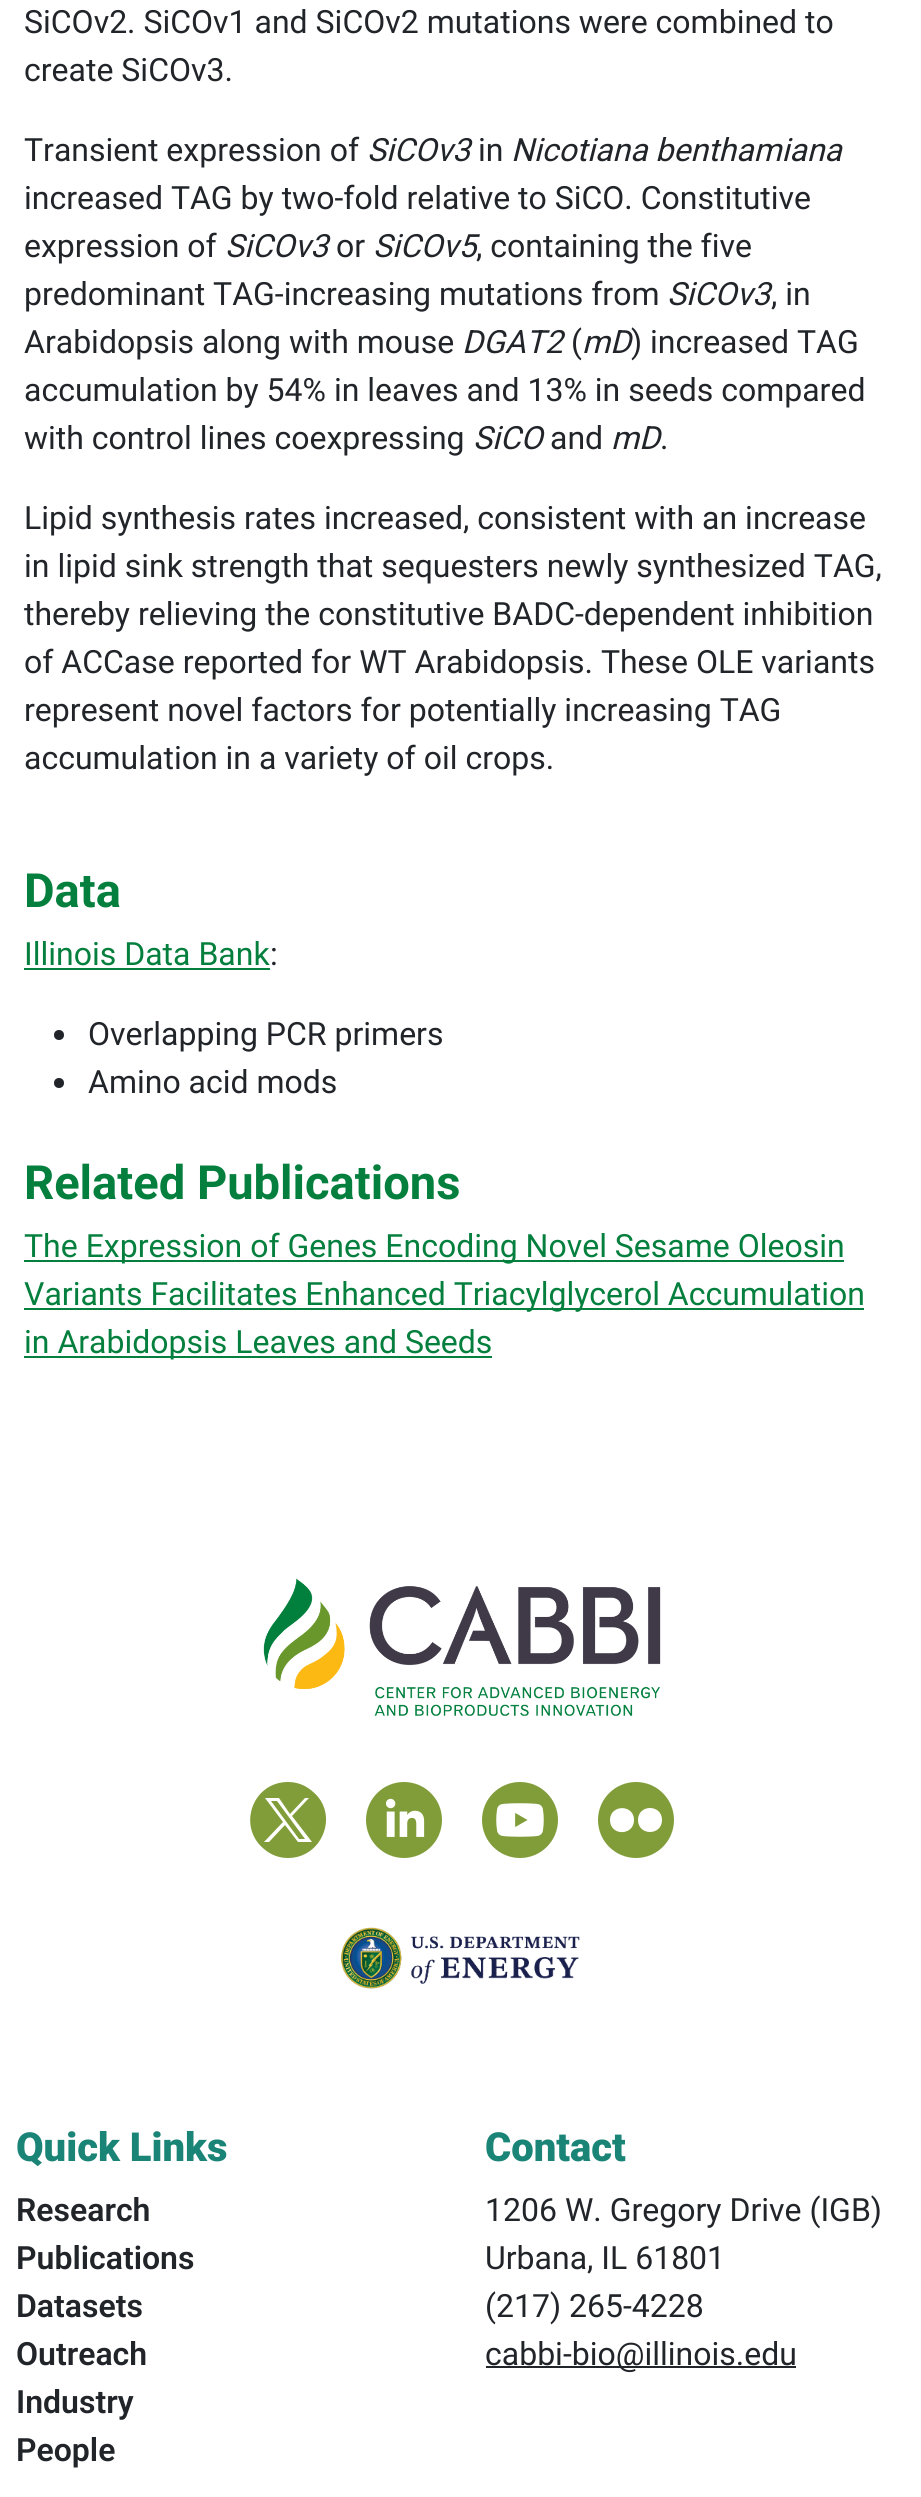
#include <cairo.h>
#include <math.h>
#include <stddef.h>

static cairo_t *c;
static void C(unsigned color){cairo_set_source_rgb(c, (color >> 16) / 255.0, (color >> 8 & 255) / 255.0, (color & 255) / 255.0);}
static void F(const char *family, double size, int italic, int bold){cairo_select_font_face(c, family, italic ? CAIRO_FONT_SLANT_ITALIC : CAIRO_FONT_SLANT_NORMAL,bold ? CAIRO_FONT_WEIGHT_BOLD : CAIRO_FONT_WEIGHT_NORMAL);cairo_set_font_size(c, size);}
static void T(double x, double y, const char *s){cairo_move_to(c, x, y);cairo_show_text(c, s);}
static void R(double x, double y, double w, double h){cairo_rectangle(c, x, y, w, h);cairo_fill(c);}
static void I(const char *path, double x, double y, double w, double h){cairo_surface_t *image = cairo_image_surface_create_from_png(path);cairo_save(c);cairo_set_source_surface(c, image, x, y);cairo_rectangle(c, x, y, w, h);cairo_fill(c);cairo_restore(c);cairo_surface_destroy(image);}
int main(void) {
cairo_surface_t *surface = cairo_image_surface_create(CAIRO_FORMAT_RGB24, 921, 2497);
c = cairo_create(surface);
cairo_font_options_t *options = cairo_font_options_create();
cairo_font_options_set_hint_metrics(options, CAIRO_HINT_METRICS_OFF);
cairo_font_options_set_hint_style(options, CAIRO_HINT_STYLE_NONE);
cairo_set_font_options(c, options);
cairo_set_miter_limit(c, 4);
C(0xffffff);
cairo_paint(c);
F("Roboto",32,0,0);
C(0x212529);
T(24,33,"SiCOv2. SiCOv1 and SiCOv2 mutations were combined to");
T(24,81,"create SiCOv3.");
T(24,161,"Transient expression of");
F("Roboto",32,1,0);
T(367,161,"SiCOv3");
F("Roboto",32,0,0);
T(478,161,"in");
F("Roboto",32,1,0);
T(511,161,"Nicotiana benthamiana");
F("Roboto",32,0,0);
T(24,209,"increased TAG by two-fold relative to SiCO. Constitutive");
T(24,257,"expression of");
F("Roboto",32,1,0);
T(225,257,"SiCOv3");
F("Roboto",32,0,0);
T(336,257,"or");
F("Roboto",32,1,0);
T(373,257,"SiCOv5");
F("Roboto",32,0,0);
T(476,257,", containing the five");
T(24,305,"predominant TAG-increasing mutations from");
F("Roboto",32,1,0);
T(667,305,"SiCOv3");
F("Roboto",32,0,0);
T(771,305,", in");
T(24,353,"Arabidopsis along with mouse");
F("Roboto",32,1,0);
T(462,353,"DGAT2");
F("Roboto",32,0,0);
T(571,353,"(");
F("Roboto",32,1,0);
T(582,353,"mD");
F("Roboto",32,0,0);
T(631,353,") increased TAG");
T(24,401,"accumulation by 54% in leaves and 13% in seeds compared");
T(24,449,"with control lines coexpressing");
F("Roboto",32,1,0);
T(473,449,"SiCO");
F("Roboto",32,0,0);
T(550,449,"and");
F("Roboto",32,1,0);
T(611,449,"mD");
F("Roboto",32,0,0);
T(660,449,".");
T(24,529,"Lipid synthesis rates increased, consistent with an increase");
T(24,577,"in lipid sink strength that sequesters newly synthesized TAG,");
T(24,625,"thereby relieving the constitutive BADC-dependent inhibition");
T(24,673,"of ACCase reported for WT Arabidopsis. These OLE variants");
T(24,721,"represent novel factors for potentially increasing TAG");
T(24,769,"accumulation in a variety of oil crops.");
F("Roboto",47.1,0,1);
C(0x047f3d);
T(24,907,"Data");
F("Roboto",32,0,0);
T(24,965,"Illinois Data Bank");
R(24,968,246,2);
C(0x212529);
T(270,965,":");
cairo_new_path(c);
cairo_arc(c,59,1035,5,0,2 * M_PI);
cairo_fill(c);
T(88,1045,"Overlapping PCR primers");
cairo_new_path(c);
cairo_arc(c,59,1083,5,0,2 * M_PI);
cairo_fill(c);
T(88,1093,"Amino acid mods");
F("Roboto",47.1,0,1);
C(0x047f3d);
T(24,1199,"Related Publications");
R(24,1260,820,2);
F("Roboto",32,0,0);
T(24,1257,"The Expression of Genes Encoding Novel Sesame Oleosin");
R(24,1308,840,2);
T(24,1305,"Variants Facilitates Enhanced Triacylglycerol Accumulation");
R(24,1356,468,2);
T(24,1353,"in Arabidopsis Leaves and Seeds");
I("1.png",263,1578,398,138);
C(0x819d39);
cairo_new_path(c);
cairo_move_to(c,288,1858);
cairo_curve_to(c,279,1858,271,1855,264,1849);
cairo_curve_to(c,237,1827,252,1782,288,1782);
cairo_curve_to(c,297,1782,305,1785,312,1791);
cairo_curve_to(c,340,1813,323,1858,288,1858);
cairo_close_path(c);
cairo_move_to(c,285,1825);
cairo_line_to(c,298,1842);
cairo_line_to(c,312,1842);
cairo_line_to(c,292,1816);
cairo_line_to(c,309,1798);
cairo_line_to(c,305,1798);
cairo_line_to(c,290,1814);
cairo_line_to(c,279,1798);
cairo_line_to(c,265,1798);
cairo_line_to(c,283,1822);
cairo_line_to(c,264,1842);
cairo_line_to(c,269,1842);
cairo_close_path(c);
cairo_move_to(c,305,1839);
cairo_line_to(c,299,1839);
cairo_line_to(c,271,1801);
cairo_line_to(c,277,1801);
cairo_close_path(c);
cairo_fill(c);
I("2.png",366,1782,76,76);
I("3.png",482,1782,76,76);
cairo_arc(c,636,1820,38,0,2 * M_PI);
cairo_fill(c);
C(0xffffff);
cairo_new_path(c);
cairo_move_to(c,610,1820);
cairo_curve_to(c,610,1836,633,1836,634,1821);
cairo_curve_to(c,635,1804,610,1804,610,1820);
cairo_close_path(c);
cairo_move_to(c,638,1820);
cairo_curve_to(c,638,1836,662,1836,662,1820);
cairo_curve_to(c,662,1804,638,1804,638,1820);
cairo_close_path(c);
cairo_fill(c);
I("4.png",340,1927,240,62);
F("Roboto Black",40,0,0);
C(0x1a8476);
T(16,2161,"Quick Links");
F("Roboto SemiBold",32,0,0);
C(0x212529);
T(16,2221,"Research");
T(16,2269,"Publications");
T(16,2317,"Datasets");
T(16,2365,"Outreach");
T(16,2413,"Industry");
T(16,2461,"People");
F("Roboto Black",40,0,0);
C(0x1a8476);
T(485,2161,"Contact");
F("Roboto",32,0,0);
C(0x212529);
T(485,2221,"1206 W. Gregory Drive (IGB)");
T(485,2269,"Urbana, IL 61801");
T(485,2317,"(217) 265-4228");
R(486,2366,310,2);
T(485,2365,"cabbi-bio@illinois.edu");
cairo_surface_write_to_png(surface, "o.png");
cairo_font_options_destroy(options);
cairo_destroy(c);
cairo_surface_destroy(surface);
return 0;
}
